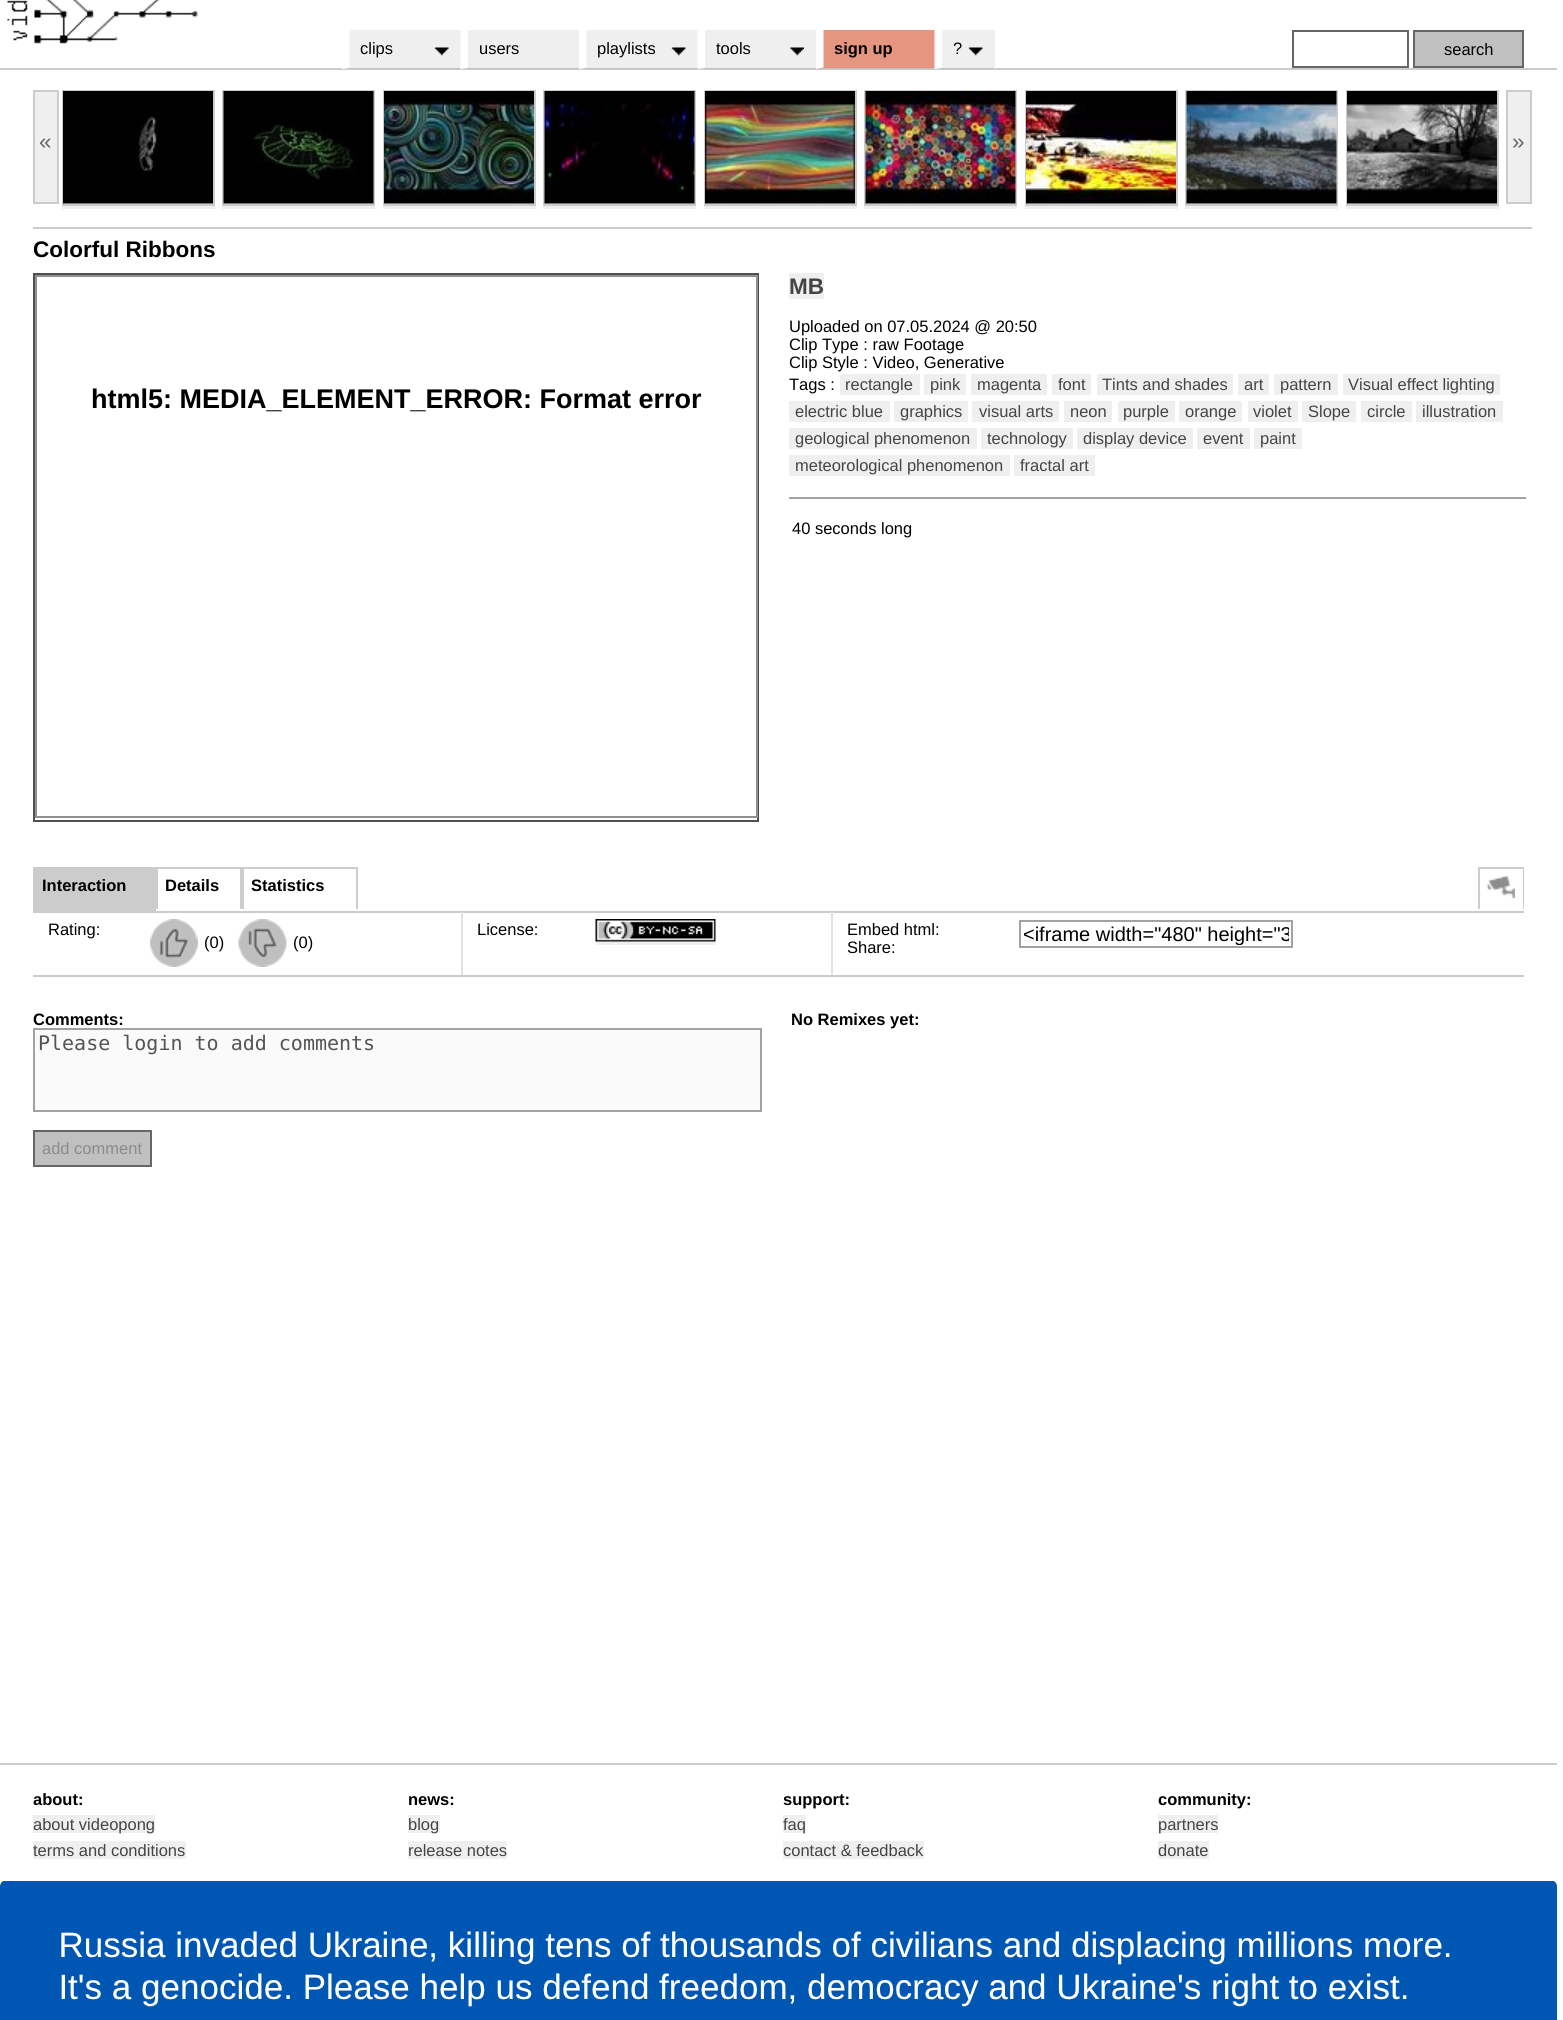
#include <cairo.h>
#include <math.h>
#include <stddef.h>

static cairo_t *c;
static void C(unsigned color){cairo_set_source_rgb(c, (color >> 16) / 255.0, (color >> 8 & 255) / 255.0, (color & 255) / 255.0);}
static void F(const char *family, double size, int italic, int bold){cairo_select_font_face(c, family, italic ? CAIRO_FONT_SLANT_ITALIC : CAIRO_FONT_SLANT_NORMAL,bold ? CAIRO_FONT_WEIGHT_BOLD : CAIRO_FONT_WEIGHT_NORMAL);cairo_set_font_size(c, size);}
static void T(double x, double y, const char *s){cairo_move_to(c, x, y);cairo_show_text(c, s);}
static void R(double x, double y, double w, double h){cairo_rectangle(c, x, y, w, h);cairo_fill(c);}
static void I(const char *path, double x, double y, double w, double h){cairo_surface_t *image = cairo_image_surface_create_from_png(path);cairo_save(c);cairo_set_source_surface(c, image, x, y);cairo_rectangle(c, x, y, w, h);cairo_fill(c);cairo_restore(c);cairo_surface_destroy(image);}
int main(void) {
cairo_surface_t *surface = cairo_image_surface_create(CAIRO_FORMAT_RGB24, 1563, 2020);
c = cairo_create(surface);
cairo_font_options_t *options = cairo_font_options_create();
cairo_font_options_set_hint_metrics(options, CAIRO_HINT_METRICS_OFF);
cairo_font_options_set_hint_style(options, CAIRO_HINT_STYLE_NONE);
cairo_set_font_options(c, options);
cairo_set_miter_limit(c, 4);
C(0xffffff);
cairo_paint(c);
C(0xcccccc);
R(0,68,1557,2);
I("1.png",7,0,21,41);
I("2.png",34,0,165,44);
C(0xefefef);
R(342,30,474,39);
C(0xbfbfbf);
cairo_new_path(c);
cairo_move_to(c,460,69);
cairo_line_to(c,342,69);
cairo_line_to(c,350,68);
cairo_line_to(c,460,68);
cairo_close_path(c);
cairo_fill(c);
C(0xffffff);
cairo_new_path(c);
cairo_move_to(c,342,69);
cairo_line_to(c,342,30);
cairo_line_to(c,349.5,30);
cairo_line_to(c,349.5,67.5);
cairo_close_path(c);
cairo_fill(c);
F("Liberation Sans",16.5,0,0);
C(0x000000);
T(360,54,"clips");
I("3.png",434,47,15,9);
C(0xbfbfbf);
cairo_new_path(c);
cairo_move_to(c,579,69);
cairo_line_to(c,460,69);
cairo_line_to(c,468,68);
cairo_line_to(c,579,68);
cairo_close_path(c);
cairo_fill(c);
C(0xffffff);
cairo_new_path(c);
cairo_move_to(c,460.5,69);
cairo_line_to(c,460.5,30);
cairo_line_to(c,468,30);
cairo_line_to(c,468,67.5);
cairo_close_path(c);
cairo_fill(c);
C(0x000000);
T(479,54,"users");
C(0xbfbfbf);
cairo_new_path(c);
cairo_move_to(c,698,69);
cairo_line_to(c,579,69);
cairo_line_to(c,586,68);
cairo_line_to(c,698,68);
cairo_close_path(c);
cairo_fill(c);
C(0xffffff);
cairo_new_path(c);
cairo_move_to(c,579,69);
cairo_line_to(c,579,30);
cairo_line_to(c,586.5,30);
cairo_line_to(c,586.5,67.5);
cairo_close_path(c);
cairo_fill(c);
C(0x000000);
T(597,54,"playlists");
I("3.png",671,47,15,9);
C(0xbfbfbf);
cairo_new_path(c);
cairo_move_to(c,816,69);
cairo_line_to(c,698,69);
cairo_line_to(c,705,68);
cairo_line_to(c,816,68);
cairo_close_path(c);
cairo_fill(c);
C(0xffffff);
cairo_new_path(c);
cairo_move_to(c,697.5,69);
cairo_line_to(c,697.5,30);
cairo_line_to(c,705,30);
cairo_line_to(c,705,67.5);
cairo_close_path(c);
cairo_fill(c);
C(0x000000);
T(716,54,"tools");
I("4.png",790,47,14,9);
C(0xe69580);
R(816,30,119,39);
C(0xbfbfbf);
cairo_new_path(c);
cairo_move_to(c,934,69);
cairo_line_to(c,816,69);
cairo_line_to(c,824,68);
cairo_line_to(c,934,68);
cairo_close_path(c);
cairo_fill(c);
C(0xffffff);
cairo_new_path(c);
cairo_move_to(c,816,69);
cairo_line_to(c,816,30);
cairo_line_to(c,823.5,30);
cairo_line_to(c,823.5,67.5);
cairo_close_path(c);
cairo_fill(c);
F("Liberation Sans",16.5,0,1);
C(0x000000);
T(834,54,"sign up");
C(0xefefef);
R(935,30,60,39);
C(0xbfbfbf);
cairo_new_path(c);
cairo_move_to(c,994,69);
cairo_line_to(c,934,69);
cairo_line_to(c,942,68);
cairo_line_to(c,994,68);
cairo_close_path(c);
cairo_fill(c);
C(0xffffff);
cairo_new_path(c);
cairo_move_to(c,934.5,69);
cairo_line_to(c,934.5,30);
cairo_line_to(c,942,30);
cairo_line_to(c,942,67.5);
cairo_close_path(c);
cairo_fill(c);
F("Liberation Sans",16.5,0,0);
C(0x000000);
T(953,54,"?");
I("5.png",968,47,15,9);
cairo_rectangle(c,1293,31,115,36);
C(0x666666);
cairo_stroke(c);
C(0xc0c0c0);
cairo_rectangle(c,1414,31,109,36);
cairo_fill_preserve(c);
C(0x666666);
cairo_stroke(c);
C(0x000000);
T(1444,55,"search");
C(0xcccccc);
R(33,227,1499,2);
C(0xefefef);
cairo_rectangle(c,34,91,24,112);
cairo_fill_preserve(c);
C(0xcccccc);
cairo_stroke(c);
F("Liberation Sans",22.5,0,0);
C(0x676767);
T(39,149,"«");
C(0xefefef);
R(64,203,149,1);
cairo_rectangle(c,63,91,151,114);
C(0xcccccc);
cairo_stroke(c);
I("6.png",63,91,150,113);
C(0xefefef);
R(62,206,153,3);
R(224,203,149,1);
cairo_rectangle(c,223,91,151,114);
C(0xcccccc);
cairo_stroke(c);
I("7.png",223,91,151,113);
C(0xefefef);
R(222,206,153,3);
R(385,203,149,1);
cairo_rectangle(c,384,91,151,114);
C(0xcccccc);
cairo_stroke(c);
I("8.png",384,91,150,113);
C(0xefefef);
R(383,206,153,3);
R(545,203,149,1);
cairo_rectangle(c,544,91,151,114);
C(0xcccccc);
cairo_stroke(c);
I("9.png",544,91,151,113);
C(0xefefef);
R(543,206,153,3);
R(706,203,149,1);
cairo_rectangle(c,705,91,151,114);
C(0xcccccc);
cairo_stroke(c);
I("10.png",705,91,150,113);
C(0xefefef);
R(704,206,153,3);
R(866,203,149,1);
cairo_rectangle(c,865,91,151,114);
C(0xcccccc);
cairo_stroke(c);
I("11.png",865,91,151,113);
C(0xefefef);
R(864,206,153,3);
R(1027,203,149,1);
cairo_rectangle(c,1026,91,151,114);
C(0xcccccc);
cairo_stroke(c);
I("12.png",1026,91,150,113);
C(0xefefef);
R(1025,206,153,3);
R(1187,203,149,1);
cairo_rectangle(c,1186,91,151,114);
C(0xcccccc);
cairo_stroke(c);
I("13.png",1186,91,151,113);
C(0xefefef);
R(1185,206,153,3);
R(1348,203,149,1);
cairo_rectangle(c,1347,91,151,114);
C(0xcccccc);
cairo_stroke(c);
I("14.png",1347,91,150,113);
C(0xefefef);
R(1346,206,153,3);
cairo_rectangle(c,1507,91,24,112);
cairo_fill_preserve(c);
C(0xcccccc);
cairo_stroke(c);
C(0x676767);
T(1512,149,"»");
F("Liberation Sans",22.5,0,1);
C(0x000000);
T(33,257,"Colorful Ribbons");
cairo_rectangle(c,34,274,724,547);
C(0x4f4f4f);
cairo_stroke(c);
cairo_rectangle(c,36,276,721,541);
C(0x909090);
cairo_stroke(c);
F("Liberation Sans",27,0,1);
C(0x000000);
T(91,408,"html5: MEDIA_ELEMENT_ERROR: Format error");
C(0xefefef);
R(789,273,35,26);
F("Liberation Sans",22.5,0,1);
C(0x444444);
T(789,294,"MB");
F("Liberation Sans",16.5,0,0);
C(0x000000);
T(789,332,"Uploaded on 07.05.2024 @ 20:50");
T(789,350,"Clip Type : raw Footage");
T(789,368,"Clip Style : Video, Generative");
T(789,390,"Tags :");
C(0xefefef);
R(840,374,80,21);
C(0x444444);
T(845,390,"rectangle");
C(0xefefef);
R(924,374,42,21);
C(0x444444);
T(930,390,"pink");
C(0xefefef);
R(971,374,76,21);
C(0x444444);
T(977,390,"magenta");
C(0xefefef);
R(1052,374,39,21);
C(0x444444);
T(1058,390,"font");
C(0xefefef);
R(1097,374,136,21);
C(0x444444);
T(1102,390,"Tints and shades");
C(0xefefef);
R(1238,374,31,21);
C(0x444444);
T(1244,390,"art");
C(0xefefef);
R(1274,374,64,21);
C(0x444444);
T(1280,390,"pattern");
C(0xefefef);
R(1343,374,157,21);
C(0x444444);
T(1348,390,"Visual effect lighting");
C(0xefefef);
R(789,401,101,21);
C(0x444444);
T(795,417,"electric blue");
C(0xefefef);
R(894,401,74,21);
C(0x444444);
T(900,417,"graphics");
C(0xefefef);
R(972,401,87,21);
C(0x444444);
T(979,417,"visual arts");
C(0xefefef);
R(1064,401,48,21);
C(0x444444);
T(1070,417,"neon");
C(0xefefef);
R(1118,401,57,21);
C(0x444444);
T(1123,417,"purple");
C(0xefefef);
R(1179,401,63,21);
C(0x444444);
T(1185,417,"orange");
C(0xefefef);
R(1248,401,50,21);
C(0x444444);
T(1253,417,"violet");
C(0xefefef);
R(1302,401,54,21);
C(0x444444);
T(1308,417,"Slope");
C(0xefefef);
R(1361,401,51,21);
C(0x444444);
T(1367,417,"circle");
C(0xefefef);
R(1416,401,87,21);
C(0x444444);
T(1422,417,"illustration");
C(0xefefef);
R(789,428,188,21);
C(0x444444);
T(795,444,"geological phenomenon");
C(0xefefef);
R(981,428,92,21);
C(0x444444);
T(987,444,"technology");
C(0xefefef);
R(1077,428,116,21);
C(0x444444);
T(1083,444,"display device");
C(0xefefef);
R(1197,428,53,21);
C(0x444444);
T(1203,444,"event");
C(0xefefef);
R(1254,428,48,21);
C(0x444444);
T(1260,444,"paint");
C(0xefefef);
R(789,455,221,21);
C(0x444444);
T(795,471,"meteorological phenomenon");
C(0xefefef);
R(1014,455,81,21);
C(0x444444);
T(1020,471,"fractal art");
C(0xa2a2a2);
R(789,497,737,2);
C(0x000000);
T(792,534,"40 seconds long");
C(0xcccccc);
R(33,867,123,44);
F("Liberation Sans",16.5,0,1);
C(0x000000);
T(42,891,"Interaction");
C(0xcccccc);
R(156,867,201,2);
R(240,867,4,42);
R(156,867,2,42);
C(0x000000);
T(165,891,"Details");
C(0xcccccc);
R(356,867,2,42);
C(0x000000);
T(251,891,"Statistics");
C(0xcccccc);
R(1478,867,46,2);
R(1523,867,1,42);
R(1478,867,2,42);
I("15.png",1486,875,29,23);
R(33,911,1491,2);
R(33,975,1491,2);
F("Liberation Sans",16.5,0,0);
C(0x000000);
T(48,935,"Rating:");
C(0xe2e2e2);
R(461,912,2,63);
I("16.png",150,919,48,48);
C(0x000000);
T(204,948,"(0)");
I("17.png",238,919,49,48);
T(293,948,"(0)");
T(477,935,"License:");
C(0xe2e2e2);
R(831,912,2,63);
I("18.png",595,919,121,23);
C(0xefefef);
R(596,942,120,3);
C(0x000000);
T(847,935,"Embed html:");
T(847,953,"Share:");
cairo_rectangle(c,1020,921,272,26);
C(0xa2a2a2);
cairo_stroke(c);
cairo_save(c);
cairo_rectangle(c,1023,923,266,22);
cairo_clip(c);
F("Liberation Sans",20,0,0);
C(0x000000);
T(1023,941,"<iframe width=\"480\" height=\"3");
cairo_restore(c);
F("Liberation Sans",16.5,0,1);
C(0x000000);
T(33,1025,"Comments:");
C(0xfafafa);
cairo_rectangle(c,34,1029,727,82);
cairo_fill_preserve(c);
C(0xa2a2a2);
cairo_stroke(c);
F("DejaVu Sans Mono",20,0,0);
C(0x545454);
T(38,1050,"Please login to add comments");
C(0xc0c0c0);
cairo_rectangle(c,34,1131,117,35);
cairo_fill_preserve(c);
C(0x666666);
cairo_stroke(c);
F("Liberation Sans",16.5,0,0);
C(0x8b8b8b);
T(42,1154,"add comment");
F("Liberation Sans",16.5,0,1);
C(0x000000);
T(791,1025,"No Remixes yet:");
C(0xcccccc);
R(0,1763,1557,2);
C(0x000000);
T(33,1805,"about:");
C(0xefefef);
R(33,1815,122,18);
F("Liberation Sans",16.5,0,0);
C(0x444444);
T(33,1830,"about videopong");
C(0xefefef);
R(33,1841,153,18);
C(0x444444);
T(33,1856,"terms and conditions");
F("Liberation Sans",16.5,0,1);
C(0x000000);
T(408,1805,"news:");
C(0xefefef);
R(408,1815,32,18);
F("Liberation Sans",16.5,0,0);
C(0x444444);
T(408,1830,"blog");
C(0xefefef);
R(408,1841,99,18);
C(0x444444);
T(408,1856,"release notes");
F("Liberation Sans",16.5,0,1);
C(0x000000);
T(783,1805,"support:");
C(0xefefef);
R(783,1815,23,18);
F("Liberation Sans",16.5,0,0);
C(0x444444);
T(783,1830,"faq");
C(0xefefef);
R(783,1841,141,18);
C(0x444444);
T(783,1856,"contact & feedback");
F("Liberation Sans",16.5,0,1);
C(0x000000);
T(1158,1805,"community:");
C(0xefefef);
R(1158,1815,60,18);
F("Liberation Sans",16.5,0,0);
C(0x444444);
T(1158,1830,"partners");
C(0xefefef);
R(1158,1841,51,18);
C(0x444444);
T(1158,1856,"donate");
I("19.png",0,1881,1557,139);
cairo_surface_write_to_png(surface, "o.png");
cairo_font_options_destroy(options);
cairo_destroy(c);
cairo_surface_destroy(surface);
return 0;
}
